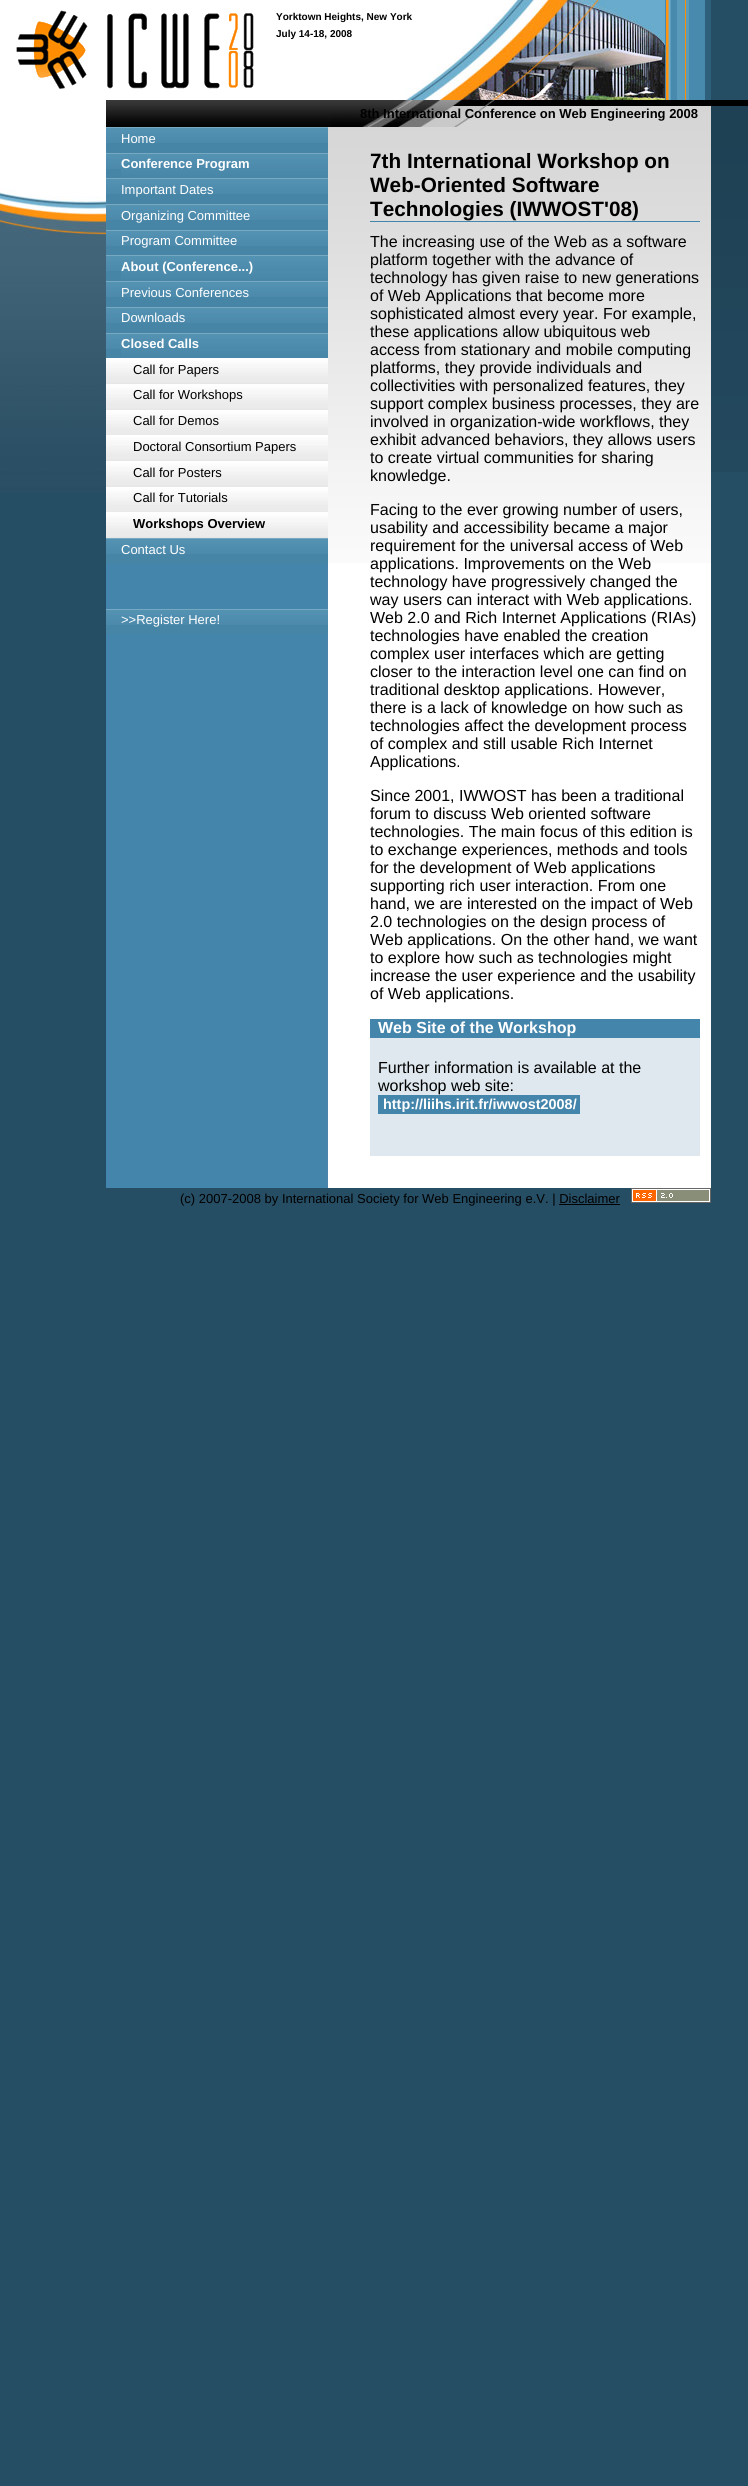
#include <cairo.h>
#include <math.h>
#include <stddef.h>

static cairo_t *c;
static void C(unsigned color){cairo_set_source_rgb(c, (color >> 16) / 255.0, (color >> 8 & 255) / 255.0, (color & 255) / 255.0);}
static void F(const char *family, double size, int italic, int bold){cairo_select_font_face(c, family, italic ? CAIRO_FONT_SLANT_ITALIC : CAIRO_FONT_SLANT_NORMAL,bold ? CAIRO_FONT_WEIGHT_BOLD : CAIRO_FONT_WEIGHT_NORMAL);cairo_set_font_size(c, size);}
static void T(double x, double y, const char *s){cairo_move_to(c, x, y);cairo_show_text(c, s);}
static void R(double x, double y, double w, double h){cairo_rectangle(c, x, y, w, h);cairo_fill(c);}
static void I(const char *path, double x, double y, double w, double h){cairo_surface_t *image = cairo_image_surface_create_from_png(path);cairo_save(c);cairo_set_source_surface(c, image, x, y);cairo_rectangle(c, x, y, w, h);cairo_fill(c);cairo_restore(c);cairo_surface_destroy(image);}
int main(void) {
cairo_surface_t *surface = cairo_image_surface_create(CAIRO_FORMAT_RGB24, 748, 2486);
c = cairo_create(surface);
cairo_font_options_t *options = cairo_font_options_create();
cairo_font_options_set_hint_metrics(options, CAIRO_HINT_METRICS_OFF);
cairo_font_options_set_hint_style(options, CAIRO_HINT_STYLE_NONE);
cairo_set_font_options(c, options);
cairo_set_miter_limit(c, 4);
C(0x254d64);
cairo_paint(c);
I("1.png",711,100,37,372);
I("2.png",665,0,46,100);
C(0xffffff);
R(0,0,406,100);
I("3.png",406,0,259,100);
I("4.png",16,10,238,79);
F("Liberation Sans",10,0,1);
C(0x000000);
T(276,20,"Yorktown Heights, New York");
T(276,37,"July 14-18, 2008");
I("5.png",0,100,106,392);
C(0xffffff);
R(328,563,383,625);
I("6.png",328,100,383,463);
I("7.png",106,564,222,624);
I("8.png",106,100,390,27);
F("Liberation Sans",13,0,1);
C(0x000000);
T(360,118,"8th International Conference on Web Engineering 2008");
C(0x4785a6);
R(106,143,222,10);
I("9.png",106,128,222,15);
C(0x77a9c3);
R(106,127,222,1);
F("Liberation Sans",13,0,0);
C(0xffffff);
T(121,143,"Home");
C(0x4785a6);
R(106,169,15,9);
I("9.png",106,154,222,15);
C(0x77a9c3);
R(106,153,222,1);
I("10.png",121,169,207,9);
F("Liberation Sans",13,0,1);
C(0xffffff);
T(121,168,"Conference Program");
C(0x4785a6);
R(106,194,222,10);
I("9.png",106,179,222,15);
C(0x77a9c3);
R(106,178,222,1);
F("Liberation Sans",13,0,0);
C(0xffffff);
T(121,194,"Important Dates");
C(0x4785a6);
R(106,220,222,10);
I("9.png",106,205,222,15);
C(0x77a9c3);
R(106,204,222,1);
C(0xffffff);
T(121,220,"Organizing Committee");
C(0x4785a6);
R(106,246,222,9);
I("9.png",106,231,222,15);
C(0x77a9c3);
R(106,230,222,1);
C(0xffffff);
T(121,245,"Program Committee");
C(0x4785a6);
R(106,271,15,10);
I("9.png",106,256,222,15);
C(0x77a9c3);
R(106,255,222,1);
I("11.png",121,271,207,10);
F("Liberation Sans",13,0,1);
C(0xffffff);
T(121,271,"About (Conference...)");
C(0x4785a6);
R(106,297,222,10);
I("9.png",106,282,222,15);
C(0x77a9c3);
R(106,281,222,1);
F("Liberation Sans",13,0,0);
C(0xffffff);
T(121,297,"Previous Conferences");
C(0x4785a6);
R(106,323,222,10);
I("9.png",106,308,222,15);
C(0x77a9c3);
R(106,307,222,1);
C(0xffffff);
T(121,322,"Downloads");
C(0x4785a6);
R(106,349,15,9);
I("9.png",106,334,222,15);
C(0x77a9c3);
R(106,333,222,1);
I("10.png",121,349,207,9);
F("Liberation Sans",13,0,1);
C(0xffffff);
T(121,348,"Closed Calls");
I("12.png",106,359,222,25);
R(106,358,222,1);
F("Liberation Sans",13,0,0);
C(0x000000);
T(133,374,"Call for Papers");
I("12.png",106,385,222,25);
C(0xffffff);
R(106,384,222,1);
C(0x000000);
T(133,399,"Call for Workshops");
I("13.png",106,411,222,24);
C(0xffffff);
R(106,410,222,1);
C(0x000000);
T(133,425,"Call for Demos");
I("12.png",106,436,222,25);
C(0xffffff);
R(106,435,222,1);
C(0x000000);
T(133,451,"Doctoral Consortium Papers");
I("12.png",106,462,222,25);
C(0xffffff);
R(106,461,222,1);
C(0x000000);
T(133,477,"Call for Posters");
I("13.png",106,488,222,24);
C(0xffffff);
R(106,487,222,1);
C(0x000000);
T(133,502,"Call for Tutorials");
I("12.png",106,513,222,25);
C(0xffffff);
R(106,512,222,1);
F("Liberation Sans",13,0,1);
C(0x000000);
T(133,528,"Workshops Overview");
C(0x4785a6);
R(106,554,222,10);
I("9.png",106,539,222,15);
C(0x77a9c3);
R(106,538,222,1);
F("Liberation Sans",13,0,0);
C(0xffffff);
T(121,554,"Contact Us");
C(0x4785a6);
R(106,625,222,9);
I("9.png",106,610,222,15);
C(0x77a9c3);
R(106,609,222,1);
C(0xffffff);
T(121,624,">>Register Here!");
C(0x4485ac);
R(370,221,330,1);
F("Liberation Sans",20.75,0,1);
C(0x000000);
T(370,168,"7th International Workshop on");
T(370,192,"Web-Oriented Software");
T(370,216,"Technologies (IWWOST'08)");
F("Liberation Sans",16,0,0);
T(370,247,"The increasing use of the Web as a software");
T(370,265,"platform together with the advance of");
T(370,283,"technology has given raise to new generations");
T(370,301,"of Web Applications that become more");
T(370,319,"sophisticated almost every year. For example,");
T(370,337,"these applications allow ubiquitous web");
T(370,355,"access from stationary and mobile computing");
T(370,373,"platforms, they provide individuals and");
T(370,391,"collectivities with personalized features, they");
T(370,409,"support complex business processes, they are");
T(370,427,"involved in organization-wide workflows, they");
T(370,445,"exhibit advanced behaviors, they allows users");
T(370,463,"to create virtual communities for sharing");
T(370,481,"knowledge.");
T(370,515,"Facing to the ever growing number of users,");
T(370,533,"usability and accessibility became a major");
T(370,551,"requirement for the universal access of Web");
T(370,569,"applications. Improvements on the Web");
T(370,587,"technology have progressively changed the");
T(370,605,"way users can interact with Web applications.");
T(370,623,"Web 2.0 and Rich Internet Applications (RIAs)");
T(370,641,"technologies have enabled the creation");
T(370,659,"complex user interfaces which are getting");
T(370,677,"closer to the interaction level one can find on");
T(370,695,"traditional desktop applications. However,");
T(370,713,"there is a lack of knowledge on how such as");
T(370,731,"technologies affect the development process");
T(370,749,"of complex and still usable Rich Internet");
T(370,767,"Applications.");
T(370,801,"Since 2001, IWWOST has been a traditional");
T(370,819,"forum to discuss Web oriented software");
T(370,837,"technologies. The main focus of this edition is");
T(370,855,"to exchange experiences, methods and tools");
T(370,873,"for the development of Web applications");
T(370,891,"supporting rich user interaction. From one");
T(370,909,"hand, we are interested on the impact of Web");
T(370,927,"2.0 technologies on the design process of");
T(370,945,"Web applications. On the other hand, we want");
T(370,963,"to explore how such as technologies might");
T(370,981,"increase the user experience and the usability");
T(370,999,"of Web applications.");
C(0xdee8ee);
R(370,1038,330,118);
C(0x4485ac);
R(370,1019,330,19);
F("Liberation Sans",16,0,1);
C(0xffffff);
T(378,1033,"Web Site of the Workshop");
F("Liberation Sans",16,0,0);
C(0x000000);
T(378,1073,"Further information is available at the");
T(378,1091,"workshop web site:");
C(0x4485ac);
R(378,1095,202,19);
F("Liberation Sans",14.4,0,1);
C(0xffffff);
T(383,1109,"http://liihs.irit.fr/iwwost2008/");
F("Liberation Sans",13,0,0);
C(0x000000);
T(180,1203,"(c) 2007-2008 by International Society for Web Engineering e.V. | Disclaimer");
I("14.png",631,1188,80,15);
R(559,1204,61,1);
cairo_surface_write_to_png(surface, "o.png");
cairo_font_options_destroy(options);
cairo_destroy(c);
cairo_surface_destroy(surface);
return 0;
}
